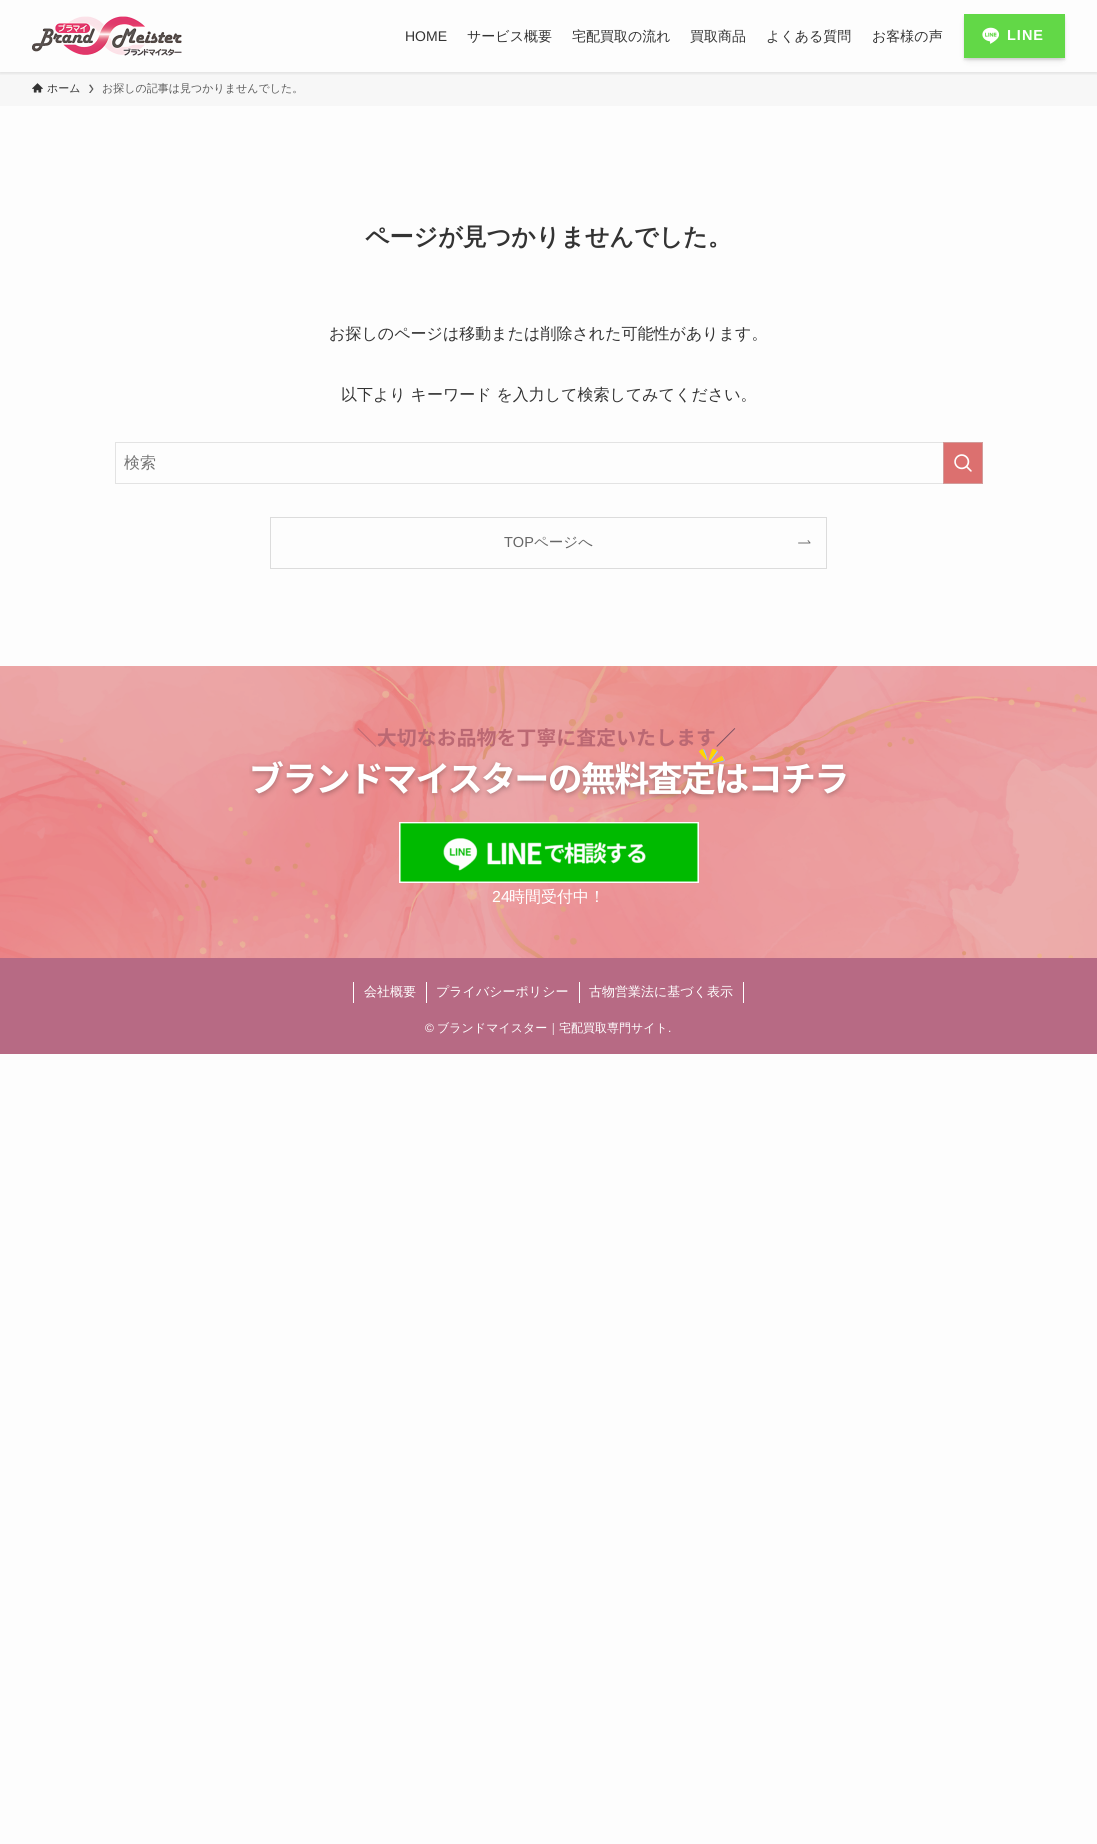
#include <cairo.h>
#include <math.h>
#include <stddef.h>

static cairo_t *c;
static void C(unsigned color){cairo_set_source_rgb(c, (color >> 16) / 255.0, (color >> 8 & 255) / 255.0, (color & 255) / 255.0);}
static void F(const char *family, double size, int italic, int bold){cairo_select_font_face(c, family, italic ? CAIRO_FONT_SLANT_ITALIC : CAIRO_FONT_SLANT_NORMAL,bold ? CAIRO_FONT_WEIGHT_BOLD : CAIRO_FONT_WEIGHT_NORMAL);cairo_set_font_size(c, size);}
static void T(double x, double y, const char *s){cairo_move_to(c, x, y);cairo_show_text(c, s);}
static void L(double x, double y, const char *s, double letter, double word){cairo_move_to(c, x, y);while (*s) {char ch[5] = {0};int n = 0;do ch[n++] = *s++; while ((*s & 0xC0) == 0x80);cairo_show_text(c, ch);cairo_rel_move_to(c, letter + word * (*ch == ' '), 0);}}
static void R(double x, double y, double w, double h){cairo_rectangle(c, x, y, w, h);cairo_fill(c);}
static void Q(double x, double y, double w, double h, double r){cairo_new_sub_path(c);cairo_arc(c, x + w - r, y + h - r, r, 0, M_PI / 2);cairo_arc(c, x + r, y + h - r, r, M_PI / 2, M_PI);cairo_arc(c, x + r, y + r, r, M_PI, 1.5 * M_PI);cairo_arc(c, x + w - r, y + r, r, 1.5 * M_PI, 2 * M_PI);cairo_close_path(c);}
static void S(double x, double y, double w, double h, double r, double blur, double alpha){cairo_push_group_with_content(c, CAIRO_CONTENT_ALPHA);cairo_set_operator(c, CAIRO_OPERATOR_SOURCE);for (int i = 15; i >= -15 && fmin(w, h) + blur * i / 3 > 0; i -= 2) {double e = blur * i / 6;cairo_set_source_rgba(c, 0, 0, 0, alpha * erfc((i - 1) / 8.5) / 2);Q(x - e, y - e, w + 2 * e, h + 2 * e, fmax(0, fmin(r + e + blur * .6, fmin(w, h) / 2 + e)));cairo_fill(c);}cairo_pattern_t *soft = cairo_pop_group(c);cairo_mask(c, soft);cairo_pattern_destroy(soft);}
static void I(const char *path, double x, double y, double w, double h){cairo_surface_t *image = cairo_image_surface_create_from_png(path);cairo_save(c);cairo_set_source_surface(c, image, x, y);cairo_rectangle(c, x, y, w, h);cairo_fill(c);cairo_restore(c);cairo_surface_destroy(image);}
int main(void) {
cairo_surface_t *surface = cairo_image_surface_create(CAIRO_FORMAT_RGB24, 1097, 1844);
c = cairo_create(surface);
cairo_font_options_t *options = cairo_font_options_create();
cairo_font_options_set_hint_metrics(options, CAIRO_HINT_METRICS_OFF);
cairo_font_options_set_hint_style(options, CAIRO_HINT_STYLE_NONE);
cairo_set_font_options(c, options);
cairo_set_miter_limit(c, 4);
C(0xfdfdfd);
cairo_paint(c);
C(0xf7f7f7);
R(0,72,1097,34);
cairo_save(c);
cairo_rectangle(c,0,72,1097,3);
cairo_clip(c);
C(0x000000);
S(0,1,1097,72,0,2,.12);
cairo_restore(c);
I("1.png",32,16,150,40);
F("Liberation Sans",14,0,0);
C(0x333333);
T(405,41,"HOME");
F("WenQuanYi Zen Hei Medium",14,0,0);
T(467,41,"サービス概要");
T(572,41,"宅配買取の流れ");
T(690,41,"買取商品");
T(766,41,"よくある質問");
T(872,41,"お客様の声");
C(0x000000);
S(968,22,93,36,0,4,.2);
S(964,16,101,44,0,1,.1);
C(0x62d847);
R(964,14,101,44);
I("2.png",982,27,17,17);
F("Liberation Sans",14.5,0,1);
C(0xffffff);
L(1007,40,"LINE",1,0);
I("3.png",32,83,11,10);
F("WenQuanYi Zen Hei Medium",11,0,0);
C(0x333333);
T(47,92,"ホーム");
C(0x5a5a5a);
cairo_new_path(c);
cairo_move_to(c,90.5,84.5);
cairo_line_to(c,89,85);
cairo_line_to(c,92,89);
cairo_line_to(c,89,93);
cairo_line_to(c,90.5,93);
cairo_line_to(c,93.5,89);
cairo_close_path(c);
cairo_fill(c);
T(102,92,"お探しの記事は見つかりませんでした。");
F("WenQuanYi Zen Hei",24,0,1);
C(0x333333);
T(365,245,"ページが見つかりませんでした。");
F("WenQuanYi Zen Hei Medium",16,0,0);
T(329,339,"お探しのページは移動または削除された可能性があります。");
T(341,400,"以下より キーワード を入力して検索してみてください。");
cairo_rectangle(c,115.5,442.5,867,41);
C(0xe3e3e3);
cairo_set_line_width(c,1);
cairo_stroke(c);
C(0x757575);
T(124,468,"検索");
C(0xdc706f);
cairo_rectangle(c,943.5,442.5,39,41);
cairo_fill_preserve(c);
C(0xd29c9b);
cairo_stroke(c);
I("4.png",954,454,18,18);
cairo_rectangle(c,270.5,517.5,556,51);
C(0xdcdcdc);
cairo_stroke(c);
F("Liberation Sans",14.5,0,0);
C(0x666666);
T(504,547,"TOP");
F("WenQuanYi Zen Hei Medium",14.5,0,0);
T(534,547,"ページへ");
I("5.png",798,540,13,4);
I("6.png",0,666,1097,292);
I("7.png",249,728,600,72);
I("8.png",399,822,300,61);
F("Liberation Sans",16,0,0);
C(0xffffff);
T(492,902,"24");
F("WenQuanYi Zen Hei Medium",16,0,0);
T(509,902,"時間受付中！");
C(0xb76a84);
R(0,958,1097,96);
C(0xffffff);
R(426,982,1,21);
R(353,982,1,21);
F("WenQuanYi Zen Hei Medium",13,0,0);
T(364,996,"会社概要");
R(579,982,1,21);
T(436,996,"プライバシーポリシー");
R(743,982,1,21);
T(589,996,"古物営業法に基づく表示");
F("Liberation Sans",12,0,0);
T(425,1032,"©");
F("WenQuanYi Zen Hei Medium",12,0,0);
T(437,1032,"ブランドマイスター｜宅配買取専門サイト");
F("Liberation Sans",12,0,0);
T(668,1032,".");
cairo_surface_write_to_png(surface, "o.png");
cairo_font_options_destroy(options);
cairo_destroy(c);
cairo_surface_destroy(surface);
return 0;
}
